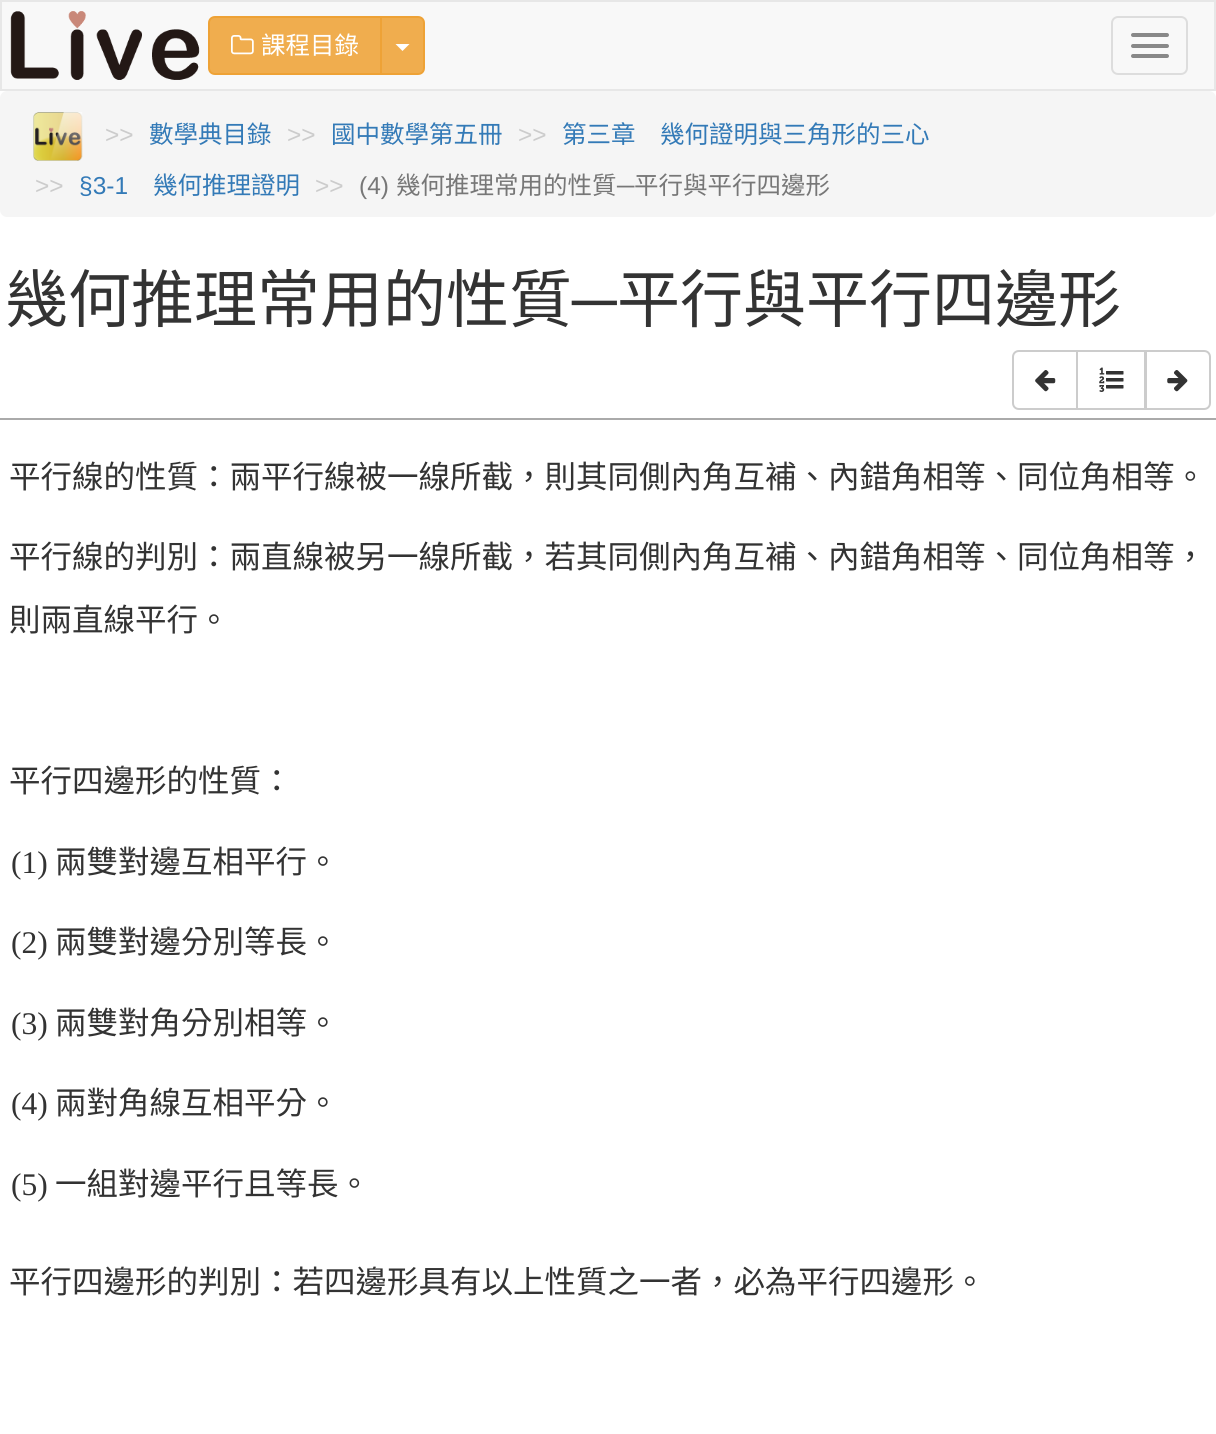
#include <cairo.h>
#include <math.h>
#include <stddef.h>

static cairo_t *c;
static void C(unsigned color){cairo_set_source_rgb(c, (color >> 16) / 255.0, (color >> 8 & 255) / 255.0, (color & 255) / 255.0);}
static void F(const char *family, double size, int italic, int bold){cairo_select_font_face(c, family, italic ? CAIRO_FONT_SLANT_ITALIC : CAIRO_FONT_SLANT_NORMAL,bold ? CAIRO_FONT_WEIGHT_BOLD : CAIRO_FONT_WEIGHT_NORMAL);cairo_set_font_size(c, size);}
static void T(double x, double y, const char *s){cairo_move_to(c, x, y);cairo_show_text(c, s);}
static void R(double x, double y, double w, double h){cairo_rectangle(c, x, y, w, h);cairo_fill(c);}
static void Q(double x, double y, double w, double h, double r){cairo_new_sub_path(c);cairo_arc(c, x + w - r, y + h - r, r, 0, M_PI / 2);cairo_arc(c, x + r, y + h - r, r, M_PI / 2, M_PI);cairo_arc(c, x + r, y + r, r, M_PI, 1.5 * M_PI);cairo_arc(c, x + w - r, y + r, r, 1.5 * M_PI, 2 * M_PI);cairo_close_path(c);}
static void I(const char *path, double x, double y, double w, double h){cairo_surface_t *image = cairo_image_surface_create_from_png(path);cairo_save(c);cairo_set_source_surface(c, image, x, y);cairo_rectangle(c, x, y, w, h);cairo_fill(c);cairo_restore(c);cairo_surface_destroy(image);}
int main(void) {
cairo_surface_t *surface = cairo_image_surface_create(CAIRO_FORMAT_RGB24, 1216, 1434);
c = cairo_create(surface);
cairo_font_options_t *options = cairo_font_options_create();
cairo_font_options_set_hint_metrics(options, CAIRO_HINT_METRICS_OFF);
cairo_font_options_set_hint_style(options, CAIRO_HINT_STYLE_NONE);
cairo_set_font_options(c, options);
cairo_set_miter_limit(c, 4);
C(0xffffff);
cairo_paint(c);
C(0xf8f8f8);
cairo_rectangle(c,1,1,1214,89);
cairo_fill_preserve(c);
C(0xe7e7e7);
cairo_stroke(c);
I("1.png",10,11,190,69);
C(0xf0ad4e);
cairo_new_path(c);
cairo_move_to(c,215,17);
cairo_line_to(c,381,17);
cairo_line_to(c,381,74);
cairo_line_to(c,215,74);
cairo_curve_to(c,211.5,74,209,71.5,209,68);
cairo_line_to(c,209,23);
cairo_curve_to(c,209,19.5,211.5,17,215,17);
cairo_close_path(c);
cairo_fill_preserve(c);
C(0xeea236);
cairo_stroke(c);
I("2.png",231,35,23,20);
F("Noto Sans CJK TC",24.5,0,0);
C(0xffffff);
T(261,54,"課程目錄");
C(0xf0ad4e);
cairo_new_path(c);
cairo_move_to(c,381,17);
cairo_line_to(c,418,17);
cairo_curve_to(c,421.5,17,424,19.5,424,23);
cairo_line_to(c,424,68);
cairo_curve_to(c,424,71.5,421.5,74,418,74);
cairo_line_to(c,381,74);
cairo_close_path(c);
cairo_fill_preserve(c);
C(0xeea236);
cairo_stroke(c);
C(0xffffff);
cairo_new_path(c);
cairo_move_to(c,395.5,44);
cairo_line_to(c,409.5,44);
cairo_line_to(c,402.5,51);
cairo_close_path(c);
cairo_fill(c);
Q(1112,17,75,57,6);
C(0xdddddd);
cairo_stroke(c);
C(0x888888);
Q(1131,33,38,4,2);
cairo_fill(c);
Q(1131,44,38,4,2);
cairo_fill(c);
Q(1131,54,38,4,2);
cairo_fill(c);
C(0xf5f5f5);
Q(0,91,1216,126,7);
cairo_fill(c);
I("3.png",33,112,50,49);
F("Liberation Sans",24.5,0,0);
C(0xcccccc);
T(105,143,">>");
F("Noto Sans CJK TC",24.5,0,0);
C(0x337ab7);
T(149,143,"數學典目錄");
F("Liberation Sans",24.5,0,0);
C(0xcccccc);
T(287,143,">>");
F("Noto Sans CJK TC",24.5,0,0);
C(0x337ab7);
T(331,143,"國中數學第五冊");
F("Liberation Sans",24.5,0,0);
C(0xcccccc);
T(518,143,">>");
F("Noto Sans CJK TC",24.5,0,0);
C(0x337ab7);
T(562,143,"第三章　幾何證明與三角形的三心");
F("Liberation Sans",24.5,0,0);
C(0xcccccc);
T(35,194,">>");
C(0x337ab7);
T(79,194,"§3-1");
F("Noto Sans CJK TC",24.5,0,0);
T(153,194,"幾何推理證明");
F("Liberation Sans",24.5,0,0);
C(0xcccccc);
T(315,194,">>");
C(0x777777);
T(359,194,"(4)");
F("Noto Sans CJK TC",24.5,0,0);
T(396,194,"幾何推理常用的性質");
F("Liberation Sans",24.5,0,0);
T(617,194,"─");
F("Noto Sans CJK TC",24.5,0,0);
T(634,194,"平行與平行四邊形");
C(0xaaaaaa);
R(0,418,1216,2);
F("Noto Sans CJK TC",63,0,0);
C(0x333333);
T(5,322,"幾何推理常用的性質");
F("Liberation Sans",63,0,0);
T(572,322,"─");
F("Noto Sans CJK TC",63,0,0);
T(617,322,"平行與平行四邊形");
cairo_new_path(c);
cairo_move_to(c,1019,351);
cairo_line_to(c,1077,351);
cairo_line_to(c,1077,409);
cairo_line_to(c,1019,409);
cairo_curve_to(c,1015.5,409,1013,406.5,1013,403);
cairo_line_to(c,1013,357);
cairo_curve_to(c,1013,353.5,1015.5,351,1019,351);
cairo_close_path(c);
C(0xcccccc);
cairo_stroke(c);
I("4.png",1035,370,21,22);
cairo_rectangle(c,1077,351,68,58);
cairo_stroke(c);
I("5.png",1099,367,25,25);
C(0xffffff);
cairo_new_path(c);
cairo_move_to(c,1146,351);
cairo_line_to(c,1204,351);
cairo_curve_to(c,1207.5,351,1210,353.5,1210,357);
cairo_line_to(c,1210,403);
cairo_curve_to(c,1210,406.5,1207.5,409,1204,409);
cairo_line_to(c,1146,409);
cairo_close_path(c);
cairo_fill_preserve(c);
C(0xcccccc);
cairo_stroke(c);
I("6.png",1167,370,21,22);
F("Noto Sans CJK TC",31.5,0,0);
C(0x333333);
T(9,488,"平行線的性質：兩平行線被一線所截，則其同側內角互補、內錯角相等、同位角相等。");
T(9,568,"平行線的判別：兩直線被另一線所截，若其同側內角互補、內錯角相等、同位角相等，");
T(9,631,"則兩直線平行。");
T(9,792,"平行四邊形的性質：");
F("Liberation Serif",31.5,0,0);
T(11,873,"(1)");
F("Noto Sans CJK TC",31.5,0,0);
T(55,873,"兩雙對邊互相平行。");
F("Liberation Serif",31.5,0,0);
T(11,953,"(2)");
F("Noto Sans CJK TC",31.5,0,0);
T(55,953,"兩雙對邊分別等長。");
F("Liberation Serif",31.5,0,0);
T(11,1034,"(3)");
F("Noto Sans CJK TC",31.5,0,0);
T(55,1034,"兩雙對角分別相等。");
F("Liberation Serif",31.5,0,0);
T(11,1114,"(4)");
F("Noto Sans CJK TC",31.5,0,0);
T(55,1114,"兩對角線互相平分。");
F("Liberation Serif",31.5,0,0);
T(11,1195,"(5)");
F("Noto Sans CJK TC",31.5,0,0);
T(55,1195,"一組對邊平行且等長。");
T(9,1293,"平行四邊形的判別：若四邊形具有以上性質之一者，必為平行四邊形。");
cairo_surface_write_to_png(surface, "o.png");
cairo_font_options_destroy(options);
cairo_destroy(c);
cairo_surface_destroy(surface);
return 0;
}
